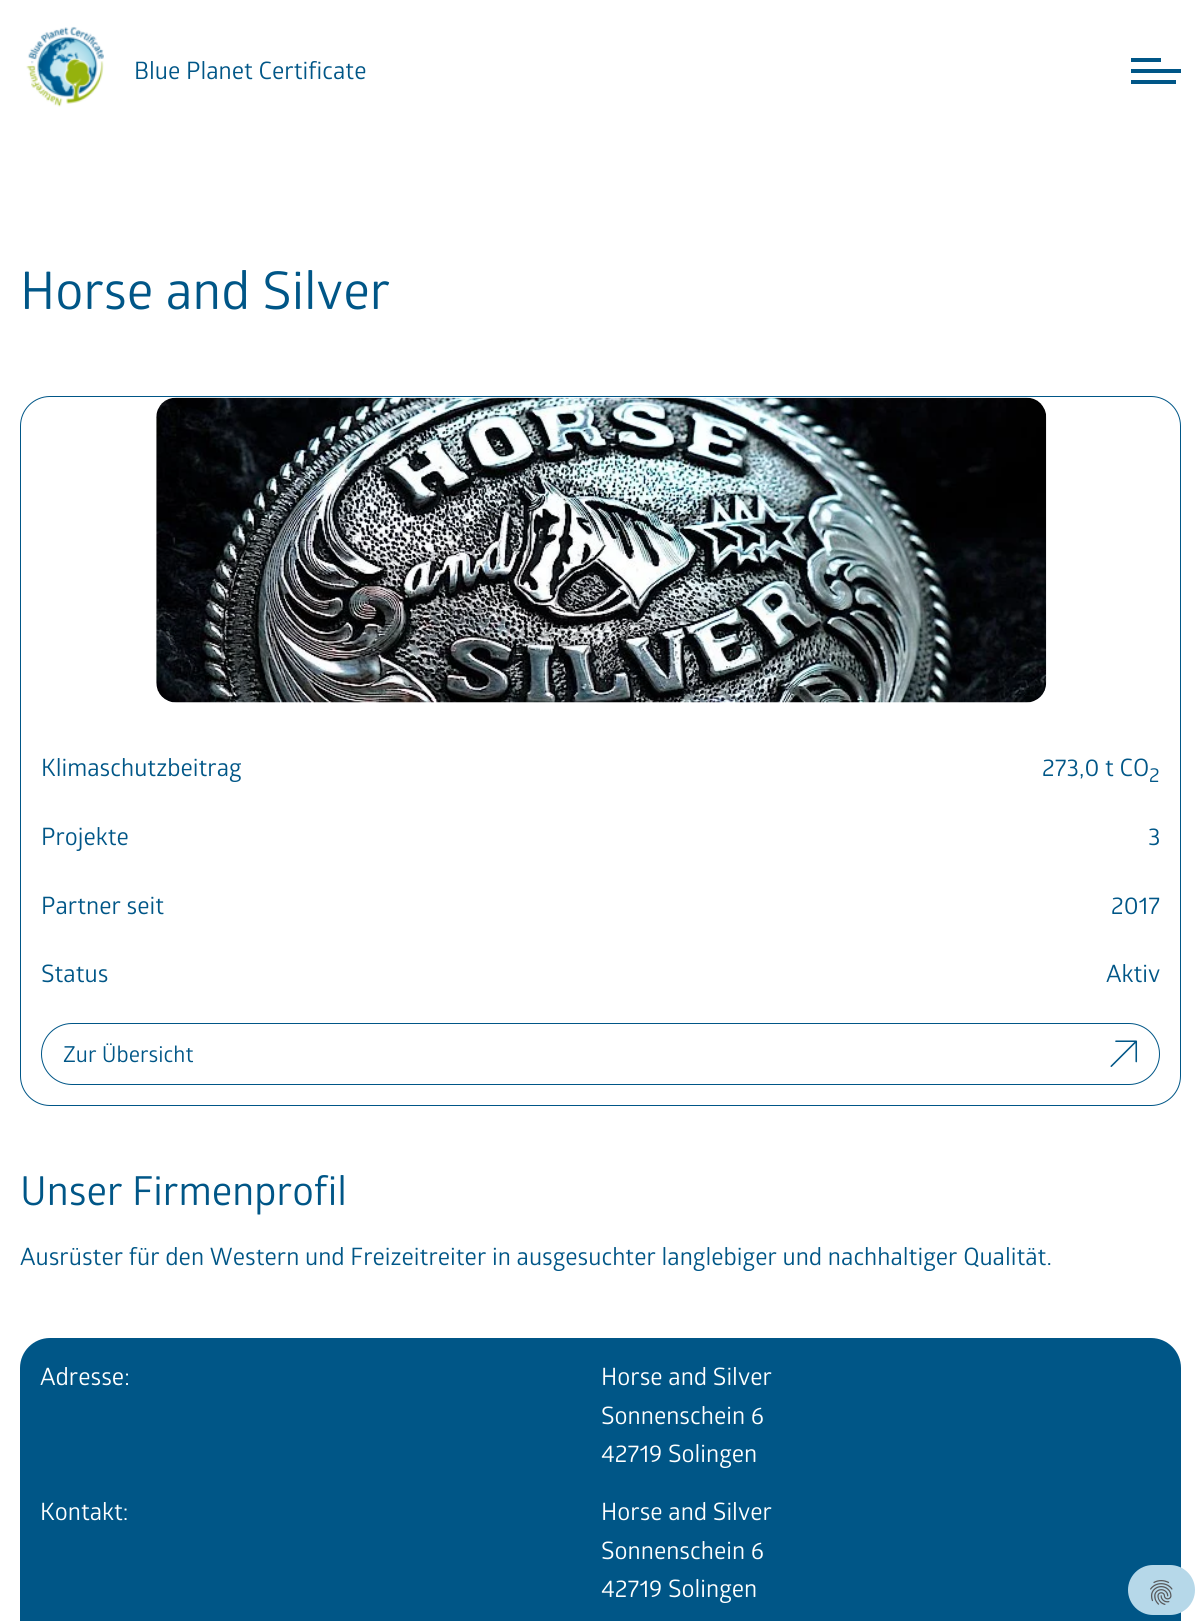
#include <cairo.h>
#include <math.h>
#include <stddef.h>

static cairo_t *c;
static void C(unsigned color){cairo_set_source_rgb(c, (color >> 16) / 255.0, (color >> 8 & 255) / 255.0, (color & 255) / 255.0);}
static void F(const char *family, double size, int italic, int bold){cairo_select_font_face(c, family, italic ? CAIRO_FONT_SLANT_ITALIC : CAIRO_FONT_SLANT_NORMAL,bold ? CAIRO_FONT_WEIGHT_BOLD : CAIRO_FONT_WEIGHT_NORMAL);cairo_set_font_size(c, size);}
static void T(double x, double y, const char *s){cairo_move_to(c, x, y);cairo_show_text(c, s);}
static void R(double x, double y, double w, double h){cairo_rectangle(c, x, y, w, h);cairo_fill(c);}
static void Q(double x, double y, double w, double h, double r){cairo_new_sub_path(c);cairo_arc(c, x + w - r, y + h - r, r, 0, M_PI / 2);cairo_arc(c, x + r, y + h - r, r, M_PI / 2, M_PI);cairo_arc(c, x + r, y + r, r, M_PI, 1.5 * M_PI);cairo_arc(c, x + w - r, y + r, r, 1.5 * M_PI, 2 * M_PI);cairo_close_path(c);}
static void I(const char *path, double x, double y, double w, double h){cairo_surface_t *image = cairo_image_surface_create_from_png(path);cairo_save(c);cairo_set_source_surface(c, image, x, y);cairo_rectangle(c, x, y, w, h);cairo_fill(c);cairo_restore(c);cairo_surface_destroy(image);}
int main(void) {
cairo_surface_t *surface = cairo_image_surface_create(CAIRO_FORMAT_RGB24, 1201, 1621);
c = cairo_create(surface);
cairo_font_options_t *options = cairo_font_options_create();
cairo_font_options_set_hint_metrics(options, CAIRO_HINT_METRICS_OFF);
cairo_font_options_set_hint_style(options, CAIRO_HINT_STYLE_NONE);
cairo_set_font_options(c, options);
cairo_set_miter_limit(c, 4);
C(0xffffff);
cairo_paint(c);
I("1.png",26,26,78,81);
F("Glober",24,0,0);
C(0x005687);
T(134,79,"Blue Planet Certificate");
R(1131,69,50,4);
R(1131,58,30,4);
R(1131,80,45,4);
F("Glober",52,0,0);
T(20,309,"Horse and Silver");
Q(20.5,396.5,1160,709,29.5);
cairo_set_line_width(c,1);
cairo_stroke(c);
I("2.png",156,397,891,306);
F("Glober",24,0,0);
T(41,776,"Klimaschutzbeitrag");
T(1042,776,"273,0 t CO");
F("Glober",20,0,0);
T(1149,782,"2");
F("Glober",24,0,0);
T(41,845,"Projekte");
T(1148,845,"3");
T(41,914,"Partner seit");
T(1111,914,"2017");
T(41,982,"Status");
T(1106,982,"Aktiv");
Q(41.5,1023.5,1118,61,30.5);
cairo_stroke(c);
F("Glober",22,0,0);
T(63,1062,"Zur Übersicht");
I("3.png",1110,1040,28,27);
F("Glober",40,0,0);
T(20,1205,"Unser Firmenprofil");
F("Glober",24,0,0);
T(20,1265,"Ausrüster für den Western und Freizeitreiter in ausgesuchter langlebiger und nachhaltiger Qualität.");
Q(20,1338,1161,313,30);
cairo_fill(c);
C(0xffffff);
T(40,1385,"Adresse:");
T(601,1385,"Horse and Silver");
T(601,1424,"Sonnenschein 6");
T(601,1462,"42719 Solingen");
T(40,1520,"Kontakt:");
T(601,1520,"Horse and Silver");
T(601,1559,"Sonnenschein 6");
T(601,1597,"42719 Solingen");
C(0xb6d8e9);
Q(1128,1565,67,50,25);
cairo_fill(c);
I("4.png",1150,1580,23,25);
cairo_surface_write_to_png(surface, "o.png");
cairo_font_options_destroy(options);
cairo_destroy(c);
cairo_surface_destroy(surface);
return 0;
}
